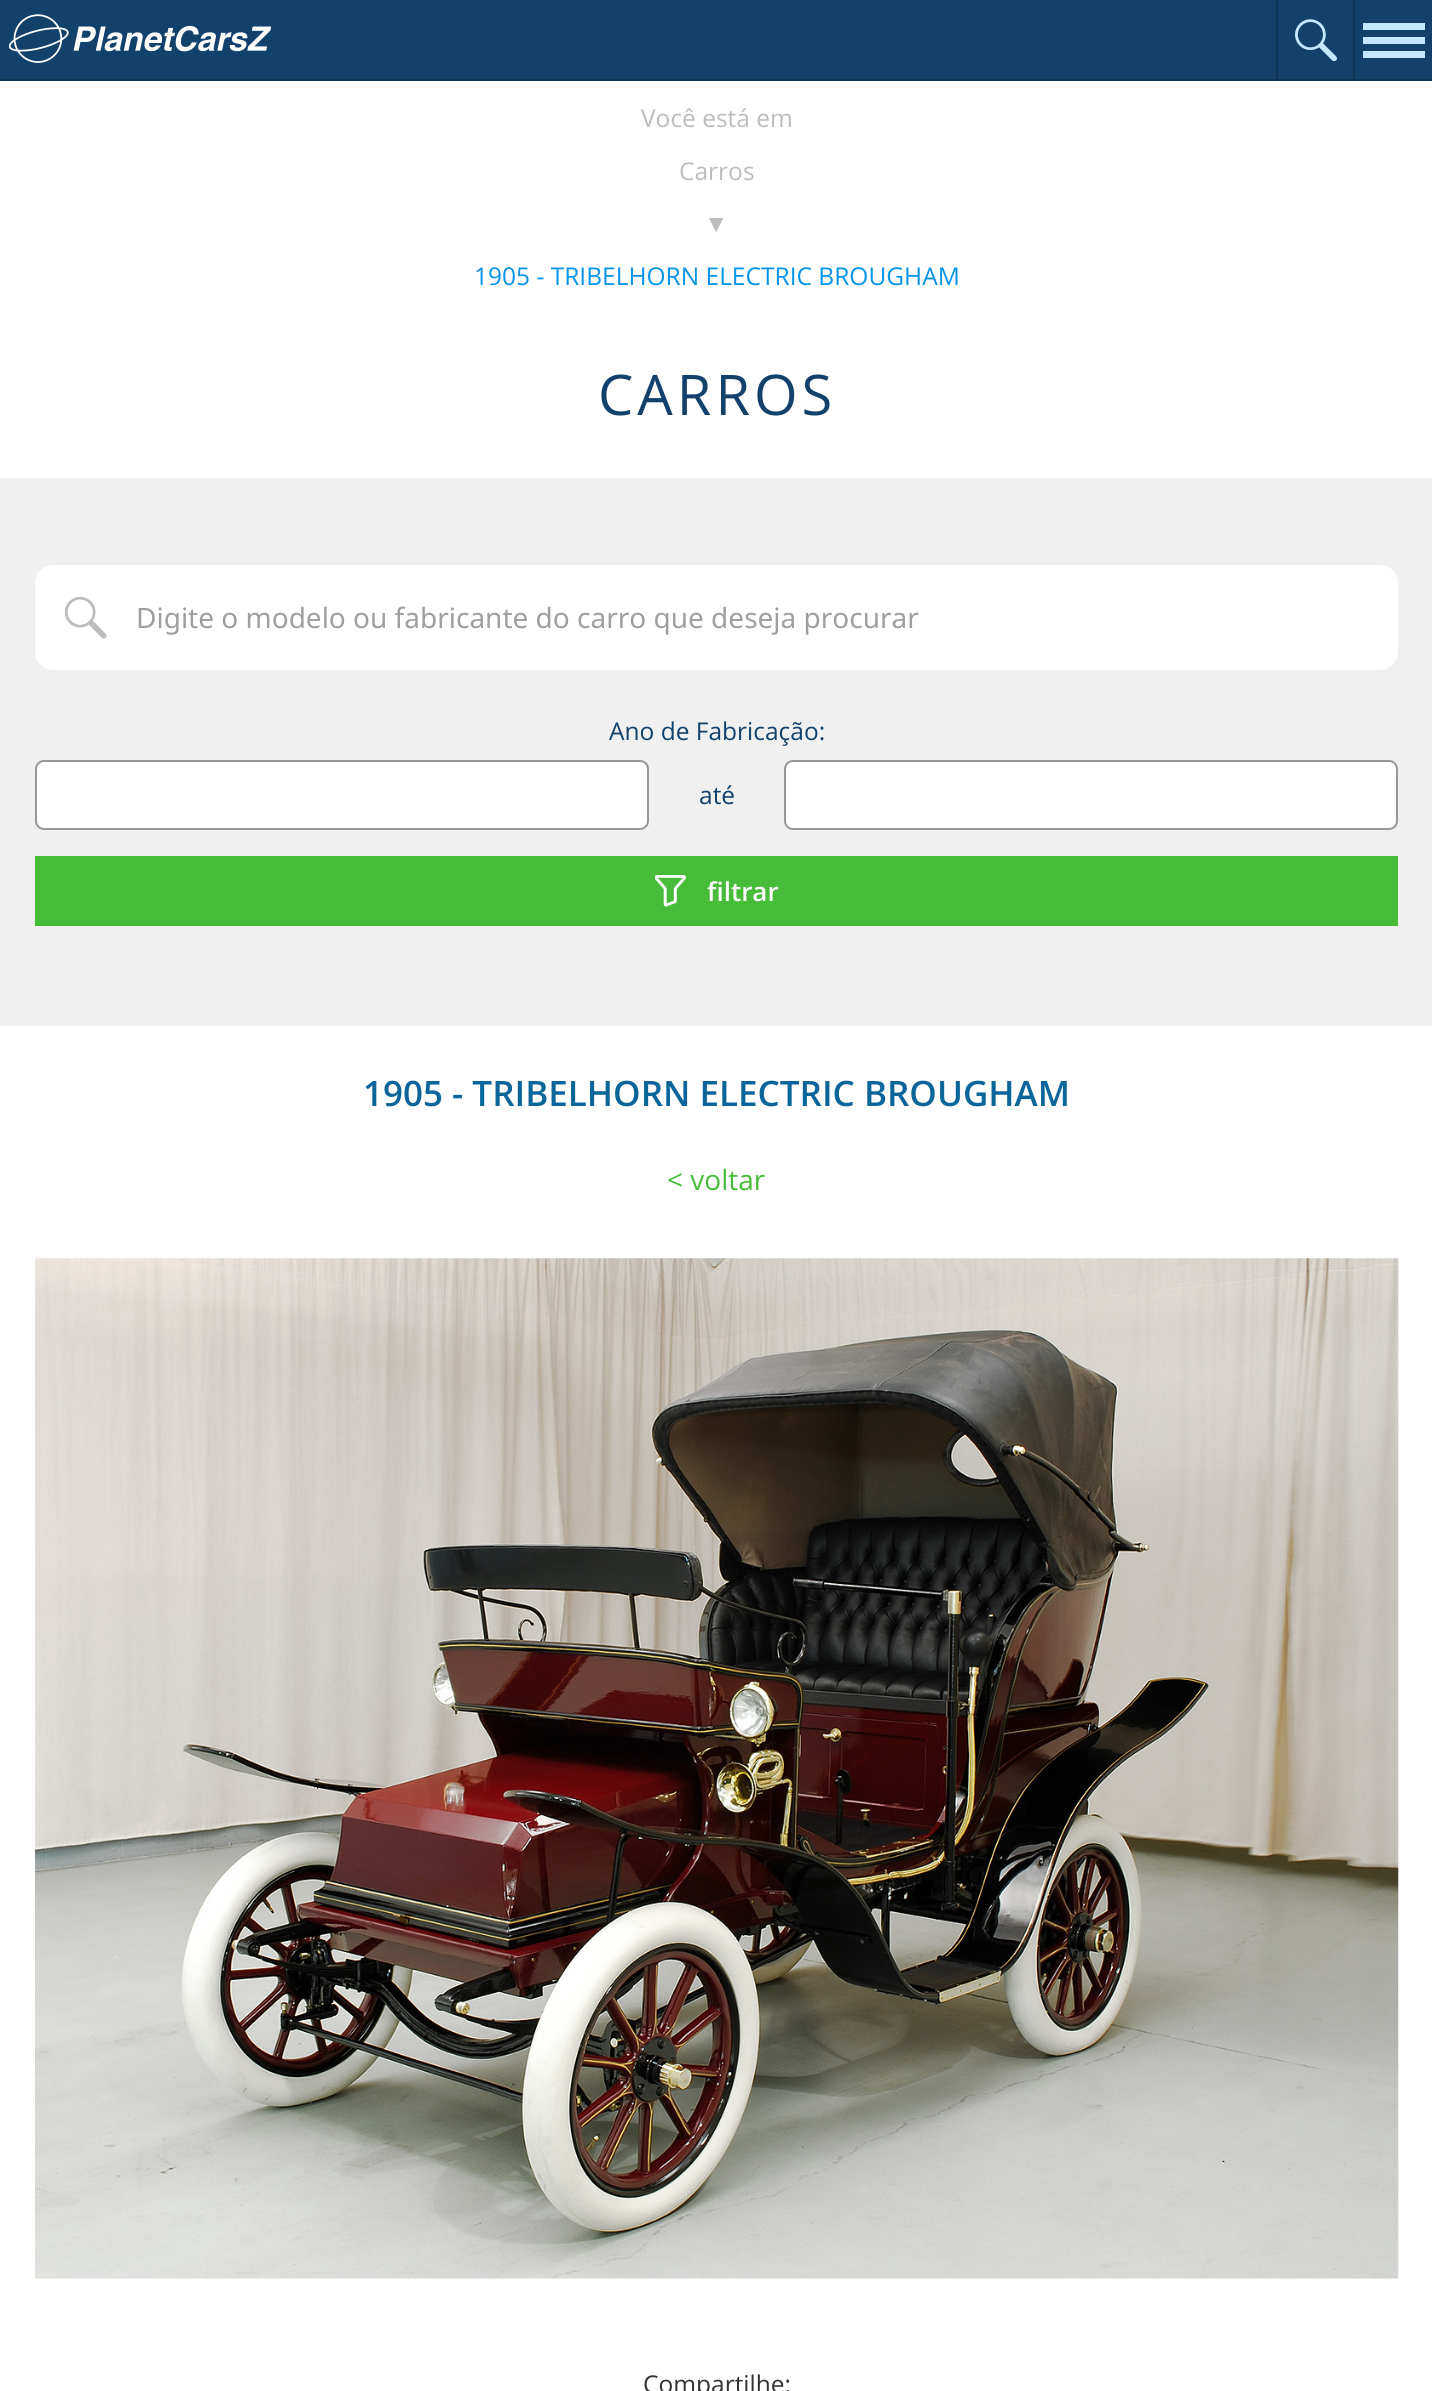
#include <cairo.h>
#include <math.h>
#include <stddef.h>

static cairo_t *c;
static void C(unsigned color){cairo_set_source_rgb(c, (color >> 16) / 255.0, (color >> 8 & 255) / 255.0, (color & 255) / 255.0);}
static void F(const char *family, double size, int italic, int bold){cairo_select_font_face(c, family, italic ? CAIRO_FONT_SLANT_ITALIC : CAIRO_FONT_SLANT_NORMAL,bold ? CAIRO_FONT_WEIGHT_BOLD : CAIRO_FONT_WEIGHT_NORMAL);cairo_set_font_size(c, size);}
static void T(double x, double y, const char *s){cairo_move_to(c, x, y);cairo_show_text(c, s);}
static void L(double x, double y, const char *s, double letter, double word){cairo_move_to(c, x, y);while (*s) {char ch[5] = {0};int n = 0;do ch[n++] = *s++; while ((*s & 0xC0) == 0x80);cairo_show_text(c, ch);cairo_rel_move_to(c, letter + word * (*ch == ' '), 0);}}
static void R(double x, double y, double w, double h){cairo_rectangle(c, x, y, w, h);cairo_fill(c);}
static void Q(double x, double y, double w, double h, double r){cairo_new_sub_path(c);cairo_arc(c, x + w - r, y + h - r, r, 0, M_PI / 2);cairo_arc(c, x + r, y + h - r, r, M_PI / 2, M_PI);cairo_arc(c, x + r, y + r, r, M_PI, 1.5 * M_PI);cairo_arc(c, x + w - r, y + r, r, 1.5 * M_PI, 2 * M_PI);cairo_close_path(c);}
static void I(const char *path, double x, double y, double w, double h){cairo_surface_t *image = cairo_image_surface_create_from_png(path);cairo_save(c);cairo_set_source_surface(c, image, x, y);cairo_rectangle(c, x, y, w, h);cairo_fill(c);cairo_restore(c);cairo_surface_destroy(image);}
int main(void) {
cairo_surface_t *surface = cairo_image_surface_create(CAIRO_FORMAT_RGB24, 1432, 2391);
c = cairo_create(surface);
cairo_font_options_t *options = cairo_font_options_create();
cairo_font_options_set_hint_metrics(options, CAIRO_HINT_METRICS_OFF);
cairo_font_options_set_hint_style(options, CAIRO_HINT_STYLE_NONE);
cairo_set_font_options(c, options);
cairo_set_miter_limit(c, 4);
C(0xffffff);
cairo_paint(c);
C(0x12416c);
R(0,0,1432,79);
C(0x0e3456);
R(0,79,1432,2);
I("1.png",9,14,262,49);
R(1353,0,2,79);
R(1276,0,2,79);
I("2.png",1295,19,42,42);
C(0xc3e8ff);
R(1363,37,62,7);
R(1363,23,62,7);
R(1363,51,62,7);
F("Open Sans",24.5,0,0);
C(0xbcbcbc);
T(641,127,"Você está em");
T(679,180,"Carros");
F("Liberation Sans",24.5,0,0);
T(704,232,"▼");
F("Open Sans",24.5,0,0);
C(0x0594e9);
T(474,285,"1905 - TRIBELHORN ELECTRIC BROUGHAM");
F("Open Sans",56,0,0);
C(0x12416c);
L(598,415,"CARROS",4,0);
C(0xf0f0f0);
R(0,478,1432,548);
C(0xffffff);
Q(35,565,1363,105,18);
cairo_fill(c);
I("3.png",65,597,42,42);
F("Noto Sans",28,0,0);
C(0x9f9f9f);
T(136,628,"Digite o modelo ou fabricante do carro que deseja procurar");
F("Open Sans",24.5,0,0);
C(0x12416c);
T(609,740,"Ano de Fabricação:");
C(0xffffff);
Q(36,761,612,68,8);
cairo_fill_preserve(c);
C(0x979797);
cairo_stroke(c);
C(0x12416c);
T(699,804,"até");
C(0xffffff);
Q(785,761,612,68,8);
cairo_fill_preserve(c);
C(0x979797);
cairo_stroke(c);
C(0x46bc39);
R(35,856,1363,70);
I("4.png",655,875,31,32);
F("Open Sans SemiBold",26,0,0);
C(0xffffff);
T(707,901,"filtrar");
F("Open Sans SemiBold",35,0,0);
C(0x0a659b);
T(363,1106,"1905 - TRIBELHORN ELECTRIC BROUGHAM");
F("Open Sans",28,0,0);
C(0x46bc39);
T(667,1190,"< voltar");
I("5.png",35,1258,1364,1021);
F("Open Sans",24.5,0,0);
C(0x333333);
T(643,2393,"Compartilhe:");
cairo_surface_write_to_png(surface, "o.png");
cairo_font_options_destroy(options);
cairo_destroy(c);
cairo_surface_destroy(surface);
return 0;
}
